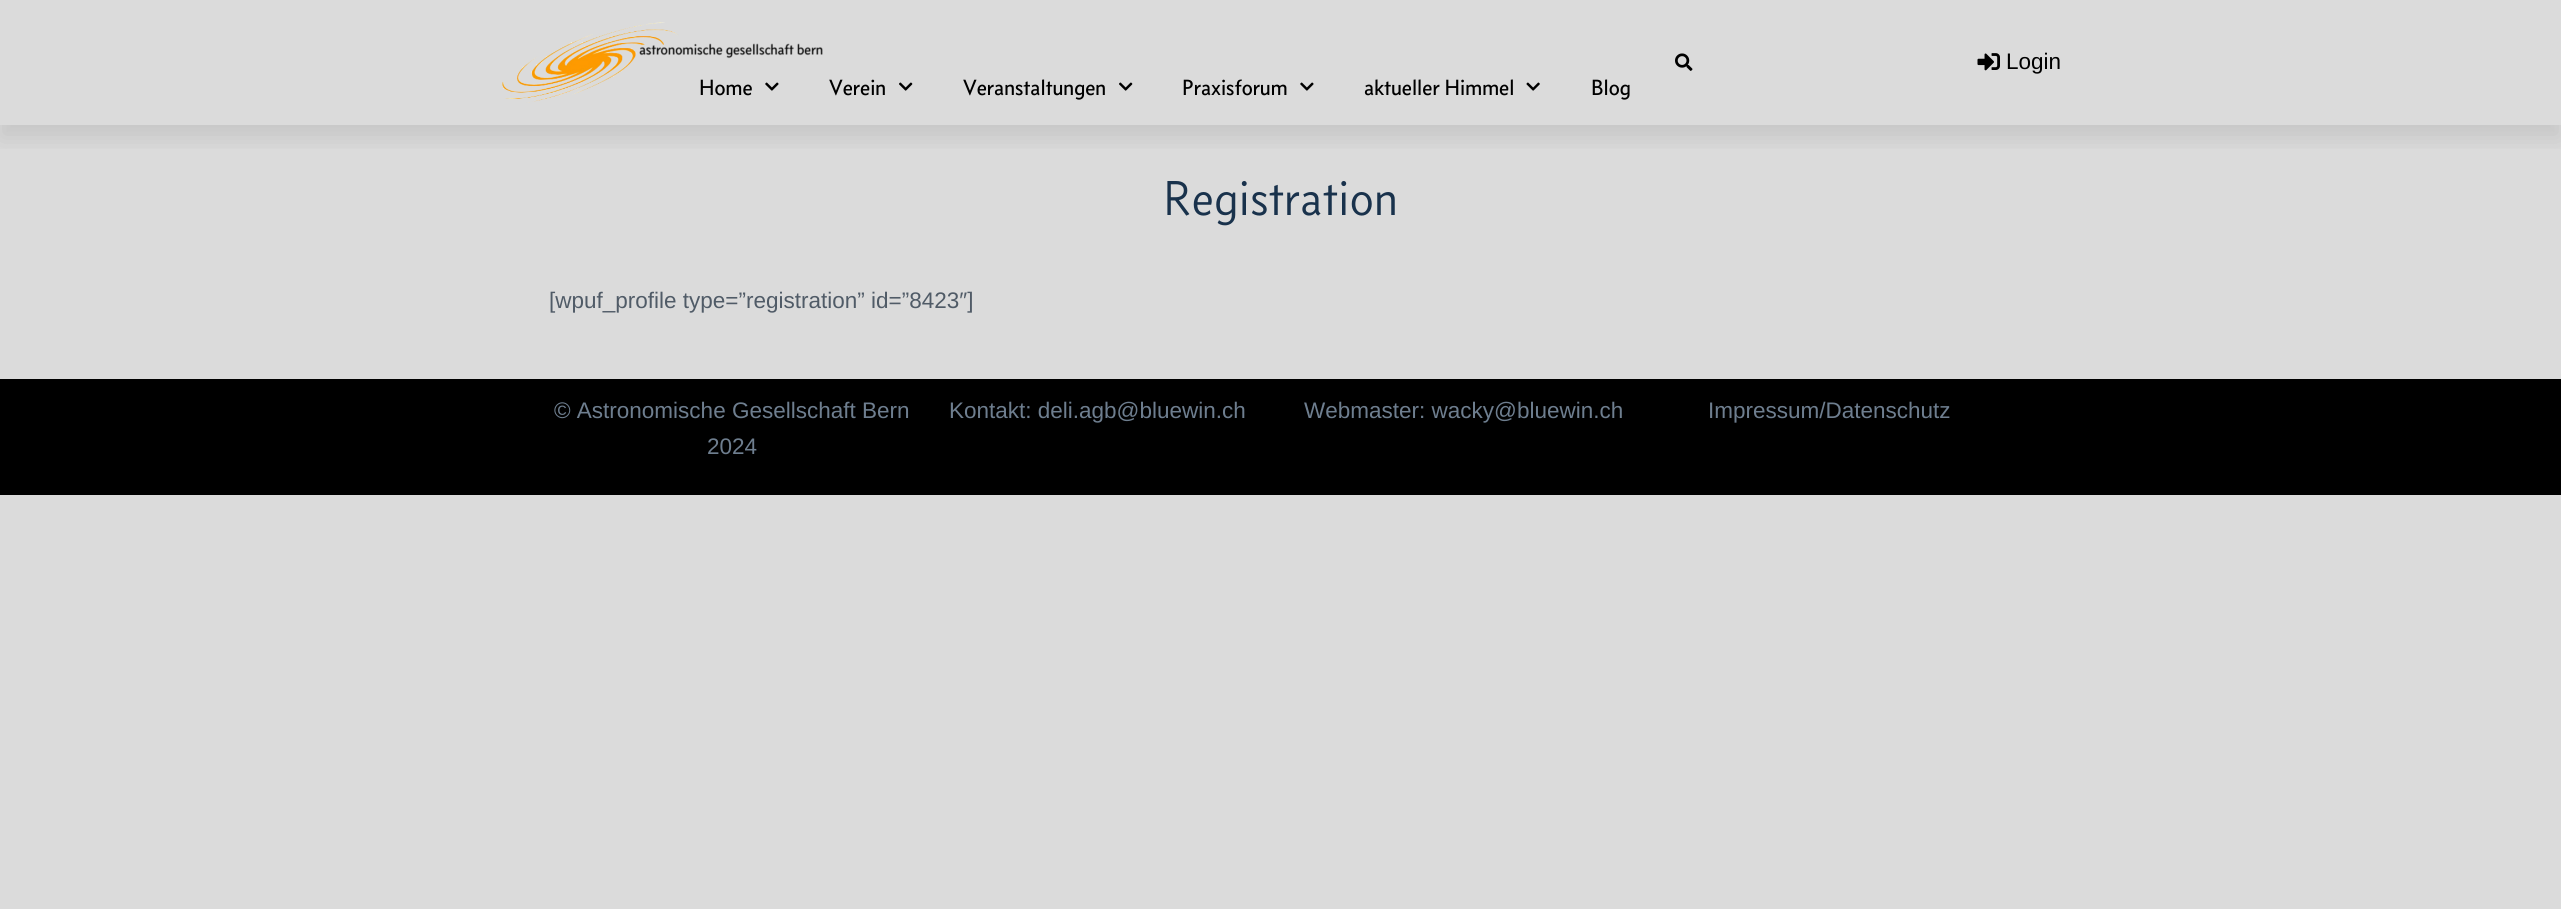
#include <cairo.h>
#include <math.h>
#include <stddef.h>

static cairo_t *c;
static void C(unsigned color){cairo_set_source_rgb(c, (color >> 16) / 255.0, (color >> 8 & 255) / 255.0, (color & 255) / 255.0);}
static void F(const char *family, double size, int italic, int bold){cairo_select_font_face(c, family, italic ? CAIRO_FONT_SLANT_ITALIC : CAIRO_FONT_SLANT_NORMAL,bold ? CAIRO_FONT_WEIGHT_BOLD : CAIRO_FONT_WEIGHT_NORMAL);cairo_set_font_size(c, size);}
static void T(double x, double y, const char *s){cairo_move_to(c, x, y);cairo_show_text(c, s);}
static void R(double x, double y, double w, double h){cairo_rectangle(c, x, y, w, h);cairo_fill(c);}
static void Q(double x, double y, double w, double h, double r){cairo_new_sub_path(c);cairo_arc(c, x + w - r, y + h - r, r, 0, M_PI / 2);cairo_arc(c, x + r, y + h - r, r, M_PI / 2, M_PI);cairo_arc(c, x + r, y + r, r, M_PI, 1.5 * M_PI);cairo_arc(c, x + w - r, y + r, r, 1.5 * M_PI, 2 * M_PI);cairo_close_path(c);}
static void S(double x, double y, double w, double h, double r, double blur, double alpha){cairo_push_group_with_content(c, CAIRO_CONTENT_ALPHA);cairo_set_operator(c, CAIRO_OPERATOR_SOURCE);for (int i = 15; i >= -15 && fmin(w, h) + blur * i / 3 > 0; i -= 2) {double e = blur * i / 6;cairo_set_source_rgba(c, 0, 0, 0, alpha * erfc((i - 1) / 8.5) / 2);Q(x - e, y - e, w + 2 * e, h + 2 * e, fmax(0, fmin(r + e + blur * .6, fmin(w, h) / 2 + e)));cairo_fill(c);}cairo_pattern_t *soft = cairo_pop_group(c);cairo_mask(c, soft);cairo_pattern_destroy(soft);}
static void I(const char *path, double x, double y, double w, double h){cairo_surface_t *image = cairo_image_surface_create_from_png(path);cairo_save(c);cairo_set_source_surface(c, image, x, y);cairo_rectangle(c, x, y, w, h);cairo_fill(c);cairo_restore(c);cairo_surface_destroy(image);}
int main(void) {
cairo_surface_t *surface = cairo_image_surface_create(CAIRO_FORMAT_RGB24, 2561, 909);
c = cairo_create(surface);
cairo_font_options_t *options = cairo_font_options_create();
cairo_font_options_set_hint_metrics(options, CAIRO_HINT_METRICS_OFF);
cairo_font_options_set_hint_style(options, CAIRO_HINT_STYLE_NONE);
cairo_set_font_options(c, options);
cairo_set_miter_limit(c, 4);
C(0xdbdbdb);
cairo_paint(c);
cairo_save(c);
cairo_rectangle(c,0,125,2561,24);
cairo_clip(c);
C(0x000000);
S(0,13,2561,125,0,12.5,.1);
cairo_restore(c);
I("1.png",502,22,321,81);
I("2.png",1675,53,18,18);
I("3.png",1977,53,23,18);
F("Liberation Sans",22.5,0,0);
C(0x000000);
T(2006,69,"Login");
F("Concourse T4",22.5,0,0);
T(699,95,"Home");
I("4.png",765,82,14,9);
T(829,95,"Verein");
I("5.png",899,82,14,9);
T(963,95,"Veranstaltungen");
I("5.png",1119,82,14,9);
T(1182,95,"Praxisforum");
I("4.png",1300,82,14,9);
T(1364,95,"aktueller Himmel");
I("6.png",1526,82,14,9);
T(1591,95,"Blog");
F("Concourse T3 Light",50,0,0);
C(0x19324c);
T(1163,215,"Registration");
F("Liberation Sans",22.5,0,0);
C(0x505b67);
T(549,308,"[wpuf_profile type=”registration” id=”8423″]");
C(0x000000);
R(0,379,2561,116);
C(0x6e7e8f);
T(554,418,"© Astronomische Gesellschaft Bern");
T(707,454,"2024");
T(949,418,"Kontakt: deli.agb@bluewin.ch");
T(1304,418,"Webmaster: wacky@bluewin.ch");
T(1708,418,"Impressum/Datenschutz");
cairo_surface_write_to_png(surface, "o.png");
cairo_font_options_destroy(options);
cairo_destroy(c);
cairo_surface_destroy(surface);
return 0;
}
